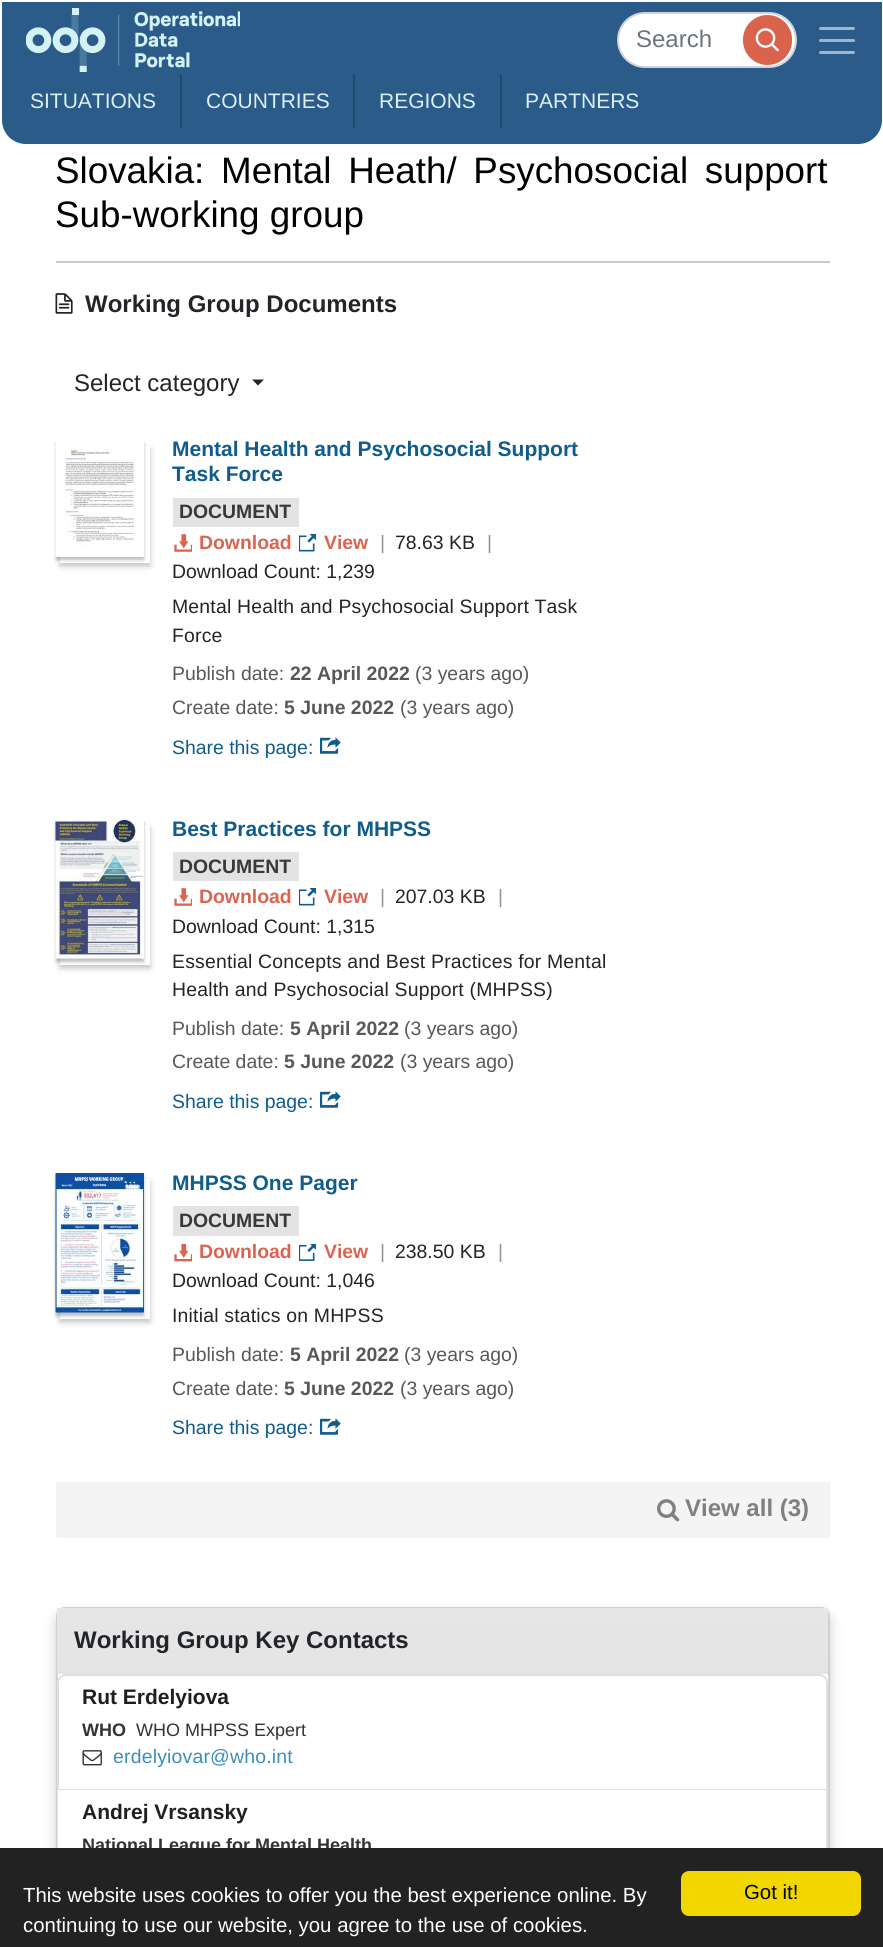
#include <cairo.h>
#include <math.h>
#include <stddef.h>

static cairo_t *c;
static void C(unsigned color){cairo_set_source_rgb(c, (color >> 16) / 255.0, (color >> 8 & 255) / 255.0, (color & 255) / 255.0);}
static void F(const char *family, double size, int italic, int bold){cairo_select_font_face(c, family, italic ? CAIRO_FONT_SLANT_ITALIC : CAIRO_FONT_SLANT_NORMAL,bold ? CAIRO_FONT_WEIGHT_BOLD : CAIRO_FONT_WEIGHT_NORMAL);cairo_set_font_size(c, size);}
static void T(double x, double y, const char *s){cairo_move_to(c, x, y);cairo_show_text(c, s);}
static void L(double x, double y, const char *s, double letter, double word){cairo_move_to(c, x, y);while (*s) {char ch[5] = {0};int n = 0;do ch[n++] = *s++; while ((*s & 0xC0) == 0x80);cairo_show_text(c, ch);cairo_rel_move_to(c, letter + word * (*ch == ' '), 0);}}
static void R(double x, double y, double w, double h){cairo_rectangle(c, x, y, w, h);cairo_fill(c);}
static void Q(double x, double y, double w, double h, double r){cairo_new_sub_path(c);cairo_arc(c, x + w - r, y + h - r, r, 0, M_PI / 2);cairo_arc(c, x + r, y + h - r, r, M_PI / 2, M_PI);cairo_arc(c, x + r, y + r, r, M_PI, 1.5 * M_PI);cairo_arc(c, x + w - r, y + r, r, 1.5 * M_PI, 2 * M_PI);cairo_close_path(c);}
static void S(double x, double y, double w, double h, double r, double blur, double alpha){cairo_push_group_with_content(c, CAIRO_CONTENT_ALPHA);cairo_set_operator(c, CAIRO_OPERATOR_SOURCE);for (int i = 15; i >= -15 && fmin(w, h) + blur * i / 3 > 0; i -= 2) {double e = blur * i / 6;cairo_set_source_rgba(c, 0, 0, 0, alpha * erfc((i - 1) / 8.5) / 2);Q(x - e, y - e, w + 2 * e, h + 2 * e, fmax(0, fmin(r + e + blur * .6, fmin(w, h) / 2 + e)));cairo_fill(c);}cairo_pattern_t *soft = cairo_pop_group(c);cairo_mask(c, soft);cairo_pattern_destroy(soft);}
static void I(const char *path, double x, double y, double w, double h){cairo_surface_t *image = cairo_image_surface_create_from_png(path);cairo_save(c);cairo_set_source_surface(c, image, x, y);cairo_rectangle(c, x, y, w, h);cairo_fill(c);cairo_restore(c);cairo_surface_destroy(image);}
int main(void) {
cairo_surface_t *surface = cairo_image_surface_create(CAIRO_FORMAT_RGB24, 883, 1947);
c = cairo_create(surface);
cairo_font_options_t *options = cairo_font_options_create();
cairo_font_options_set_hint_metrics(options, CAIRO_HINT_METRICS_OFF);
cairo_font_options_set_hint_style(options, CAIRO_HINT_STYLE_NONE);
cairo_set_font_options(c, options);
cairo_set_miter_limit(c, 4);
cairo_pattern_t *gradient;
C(0xffffff);
cairo_paint(c);
C(0x2a5b89);
cairo_new_path(c);
cairo_move_to(c,4.5,4.5);
cairo_line_to(c,879.5,4.5);
cairo_line_to(c,879.5,120);
cairo_curve_to(c,879.5,132,870,141.5,858,141.5);
cairo_line_to(c,26,141.5);
cairo_curve_to(c,14,141.5,4.5,132,4.5,120);
cairo_close_path(c);
cairo_fill_preserve(c);
cairo_set_line_width(c,5);
cairo_stroke(c);
I("1.png",26,8,214,64);
C(0xffffff);
Q(618,13,178,54,27);
cairo_fill_preserve(c);
C(0xced4da);
cairo_set_line_width(c,2);
cairo_stroke(c);
F("Liberation Sans",24,0,0);
C(0x6c757d);
T(636,47,"Search");
C(0xda634b);
Q(743,15,49,50,24.5);
cairo_fill(c);
I("2.png",755,28,24,24);
cairo_new_path(c);
cairo_move_to(c,820.5,28.5);
cairo_line_to(c,853.5,28.5);
cairo_move_to(c,820.5,40.5);
cairo_line_to(c,853.5,40.5);
cairo_move_to(c,820.5,52.5);
cairo_line_to(c,853.5,52.5);
C(0x9fb5ca);
cairo_set_line_width(c,3);
cairo_set_line_cap(c,CAIRO_LINE_CAP_ROUND);
cairo_stroke(c);
F("Liberation Sans",21,0,0);
C(0xdaf0f3);
T(30,108,"SITUATIONS");
C(0x22496e);
R(180,74,2,54);
C(0xdaf0f3);
T(206,108,"COUNTRIES");
C(0x22496e);
R(353,74,2,54);
C(0xdaf0f3);
T(379,108,"REGIONS");
C(0x22496e);
R(500,74,2,54);
C(0xdaf0f3);
T(525,108,"PARTNERS");
F("Liberation Sans",36.8,0,0);
C(0x000000);
L(55,183,"Slovakia: Mental Heath/ Psychosocial support",0,6.5);
T(55,227,"Sub-working group");
C(0xc8c9ca);
R(56,261,774,2);
I("3.png",55,293,18,21);
F("Liberation Sans",24,0,1);
C(0x212529);
T(85,312,"Working Group Documents");
F("Liberation Sans",24,0,0);
T(74,391,"Select category");
cairo_new_path(c);
cairo_move_to(c,252,379.5);
cairo_line_to(c,264,379.5);
cairo_line_to(c,258,385.5);
cairo_close_path(c);
cairo_fill(c);
C(0x000000);
S(60,449,90,117,0,3,.25);
C(0xffffff);
R(60,446,90,117);
cairo_save(c);
cairo_set_fill_rule(c,CAIRO_FILL_RULE_EVEN_ODD);
cairo_new_path(c);
cairo_move_to(c,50,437);
cairo_line_to(c,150,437);
cairo_line_to(c,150,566);
cairo_line_to(c,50,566);
cairo_close_path(c);
cairo_move_to(c,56,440);
cairo_line_to(c,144,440);
cairo_line_to(c,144,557);
cairo_line_to(c,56,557);
cairo_close_path(c);
cairo_clip(c);
C(0x000000);
S(56,443,88,117,0,1.5,.25);
cairo_restore(c);
I("4.png",55,444,89,113);
F("Liberation Sans",21,0,1);
C(0x105c8d);
T(172,456,"Mental Health and Psychosocial Support");
T(172,481,"Task Force");
C(0xe3e3e3);
R(173,498,126,29);
F("Liberation Sans",19.4,0,1);
C(0x393939);
T(179,518,"DOCUMENT");
I("5.png",174,534,18,18);
C(0xdb6451);
T(199,549,"Download");
I("6.png",299,534,17,18);
T(324,549,"View");
F("Liberation Sans",19.4,0,0);
C(0x909294);
T(380,549,"|");
C(0x212529);
T(395,549,"78.63 KB");
C(0x909294);
T(487,549,"|");
C(0x212529);
T(172,578,"Download Count: 1,239");
L(172,613,"Mental Health and Psychosocial Support Task",.2,0);
L(172,642,"Force",.2,0);
C(0x585858);
T(172,680,"Publish date:");
F("Liberation Sans",19.4,0,1);
T(290,680,"22 April 2022");
F("Liberation Sans",19.4,0,0);
T(415,680,"(3 years ago)");
T(172,714,"Create date:");
F("Liberation Sans",19.4,0,1);
T(284,714,"5 June 2022");
F("Liberation Sans",19.4,0,0);
T(400,714,"(3 years ago)");
C(0x105c8d);
T(172,754,"Share this page:");
I("7.png",320,737,21,17);
C(0x000000);
S(60,828,90,140,0,3,.25);
C(0xffffff);
R(60,825,90,140);
C(0x000000);
S(56,822,88,140,0,1.5,.25);
I("8.png",55,819,89,140);
F("Liberation Sans",21,0,1);
C(0x105c8d);
T(172,836,"Best Practices for MHPSS");
C(0xe3e3e3);
R(173,852,126,29);
F("Liberation Sans",19.4,0,1);
C(0x393939);
T(179,873,"DOCUMENT");
I("5.png",174,888,18,18);
C(0xdb6451);
T(199,903,"Download");
I("6.png",299,888,17,18);
T(324,903,"View");
F("Liberation Sans",19.4,0,0);
C(0x909294);
T(380,903,"|");
C(0x212529);
T(395,903,"207.03 KB");
C(0x909294);
T(498,903,"|");
C(0x212529);
T(172,933,"Download Count: 1,315");
L(172,968,"Essential Concepts and Best Practices for Mental",.2,0);
L(172,996,"Health and Psychosocial Support (MHPSS)",.2,0);
C(0x585858);
T(172,1035,"Publish date:");
F("Liberation Sans",19.4,0,1);
T(290,1035,"5 April 2022");
F("Liberation Sans",19.4,0,0);
T(404,1035,"(3 years ago)");
T(172,1068,"Create date:");
F("Liberation Sans",19.4,0,1);
T(284,1068,"5 June 2022");
F("Liberation Sans",19.4,0,0);
T(400,1068,"(3 years ago)");
C(0x105c8d);
T(172,1108,"Share this page:");
I("7.png",320,1091,21,17);
C(0x000000);
S(60,1182,90,140,0,3,.25);
C(0xffffff);
R(60,1179,90,140);
C(0x000000);
S(56,1176,88,140,0,1.5,.25);
I("9.png",55,1173,89,140);
F("Liberation Sans",21,0,1);
C(0x105c8d);
T(172,1190,"MHPSS One Pager");
C(0xe3e3e3);
R(173,1206,126,30);
F("Liberation Sans",19.4,0,1);
C(0x393939);
T(179,1227,"DOCUMENT");
I("10.png",174,1244,18,18);
C(0xdb6451);
T(199,1258,"Download");
I("11.png",299,1244,17,17);
T(324,1258,"View");
F("Liberation Sans",19.4,0,0);
C(0x909294);
T(380,1258,"|");
C(0x212529);
T(395,1258,"238.50 KB");
C(0x909294);
T(498,1258,"|");
C(0x212529);
T(172,1287,"Download Count: 1,046");
L(172,1322,"Initial statics on MHPSS",.2,0);
C(0x585858);
T(172,1361,"Publish date:");
F("Liberation Sans",19.4,0,1);
T(290,1361,"5 April 2022");
F("Liberation Sans",19.4,0,0);
T(404,1361,"(3 years ago)");
T(172,1395,"Create date:");
F("Liberation Sans",19.4,0,1);
T(284,1395,"5 June 2022");
F("Liberation Sans",19.4,0,0);
T(400,1395,"(3 years ago)");
C(0x105c8d);
T(172,1434,"Share this page:");
I("7.png",320,1418,21,17);
C(0xf4f4f4);
Q(56,1482,774,56,1.5);
cairo_fill(c);
I("12.png",657,1499,23,23);
F("Liberation Sans",24,0,1);
C(0x808080);
T(685,1516,"View all (3)");
C(0x000000);
S(56,1613,774,301,9,6,.2);
C(0xffffff);
Q(56,1607,774,301,9);
cairo_fill(c);
Q(57,1608,772,299,8);
cairo_set_source_rgba(c,0,0,0,0.18);
cairo_set_line_width(c,2);
cairo_set_line_cap(c,CAIRO_LINE_CAP_BUTT);
cairo_stroke(c);
gradient = cairo_pattern_create_linear(443,1608,443,1674);
cairo_pattern_add_color_stop_rgba(gradient,0,0.902,0.902,0.902,1);
cairo_pattern_add_color_stop_rgba(gradient,1,0.894,0.894,0.894,1);
cairo_set_source(c,gradient);
cairo_pattern_destroy(gradient);
R(57,1608,771,66);
C(0x212529);
T(74,1648,"Working Group Key Contacts");
C(0xffffff);
cairo_new_path(c);
cairo_move_to(c,66,1674);
cairo_line_to(c,819,1674);
cairo_curve_to(c,824,1674,828,1678,828,1683);
cairo_line_to(c,828,1791);
cairo_line_to(c,57,1791);
cairo_line_to(c,57,1683);
cairo_curve_to(c,57,1678,61,1674,66,1674);
cairo_close_path(c);
cairo_fill(c);
cairo_new_path(c);
cairo_move_to(c,66,1675);
cairo_line_to(c,819,1675);
cairo_curve_to(c,823.5,1675,827,1678.5,827,1683);
cairo_line_to(c,827,1790);
cairo_line_to(c,58,1790);
cairo_line_to(c,58,1683);
cairo_curve_to(c,58,1678.5,61.5,1675,66,1675);
cairo_close_path(c);
cairo_set_source_rgba(c,0,0,0,0.12);
cairo_stroke(c);
F("Liberation Sans",21,0,1);
C(0x1f1f1f);
T(82,1704,"Rut Erdelyiova");
F("Liberation Sans",18,0,1);
C(0x333333);
T(82,1736,"WHO");
F("Liberation Sans",18,0,0);
T(136,1736,"WHO MHPSS Expert");
I("13.png",82,1750,20,16);
F("Liberation Sans",19.4,0,0);
C(0x3c8dbc);
L(113,1763,"erdelyiovar@who.int",.2,0);
C(0xffffff);
R(57,1790,771,58);
cairo_set_source_rgba(c,0,0,0,0.12);
cairo_set_fill_rule(c,CAIRO_FILL_RULE_EVEN_ODD);
cairo_new_path(c);
cairo_move_to(c,57,1790);
cairo_line_to(c,828,1790);
cairo_line_to(c,828,1898);
cairo_curve_to(c,828,1902,824,1906,819,1906);
cairo_line_to(c,66,1906);
cairo_curve_to(c,61,1906,57,1902,57,1898);
cairo_close_path(c);
cairo_move_to(c,58,1790);
cairo_line_to(c,826,1790);
cairo_line_to(c,826,1898);
cairo_curve_to(c,826,1902,823,1905,819,1905);
cairo_line_to(c,66,1905);
cairo_curve_to(c,62,1905,58,1902,58,1898);
cairo_close_path(c);
cairo_fill(c);
F("Liberation Sans",21,0,1);
C(0x1f1f1f);
T(82,1819,"Andrej Vrsansky");
F("Liberation Sans",18,0,1);
C(0x333333);
T(82,1851,"National League for Mental Health");
C(0x222222);
R(0,1848,883,99);
F("Liberation Sans",20.4,0,0);
C(0xffffff);
T(23,1902,"This website uses cookies to offer you the best experience online. By");
T(23,1932,"continuing to use our website, you agree to the use of cookies.");
C(0xf1d600);
Q(681,1871,180,45,8);
cairo_fill(c);
C(0x000000);
T(744,1899,"Got it!");
cairo_surface_write_to_png(surface, "o.png");
cairo_font_options_destroy(options);
cairo_destroy(c);
cairo_surface_destroy(surface);
return 0;
}
